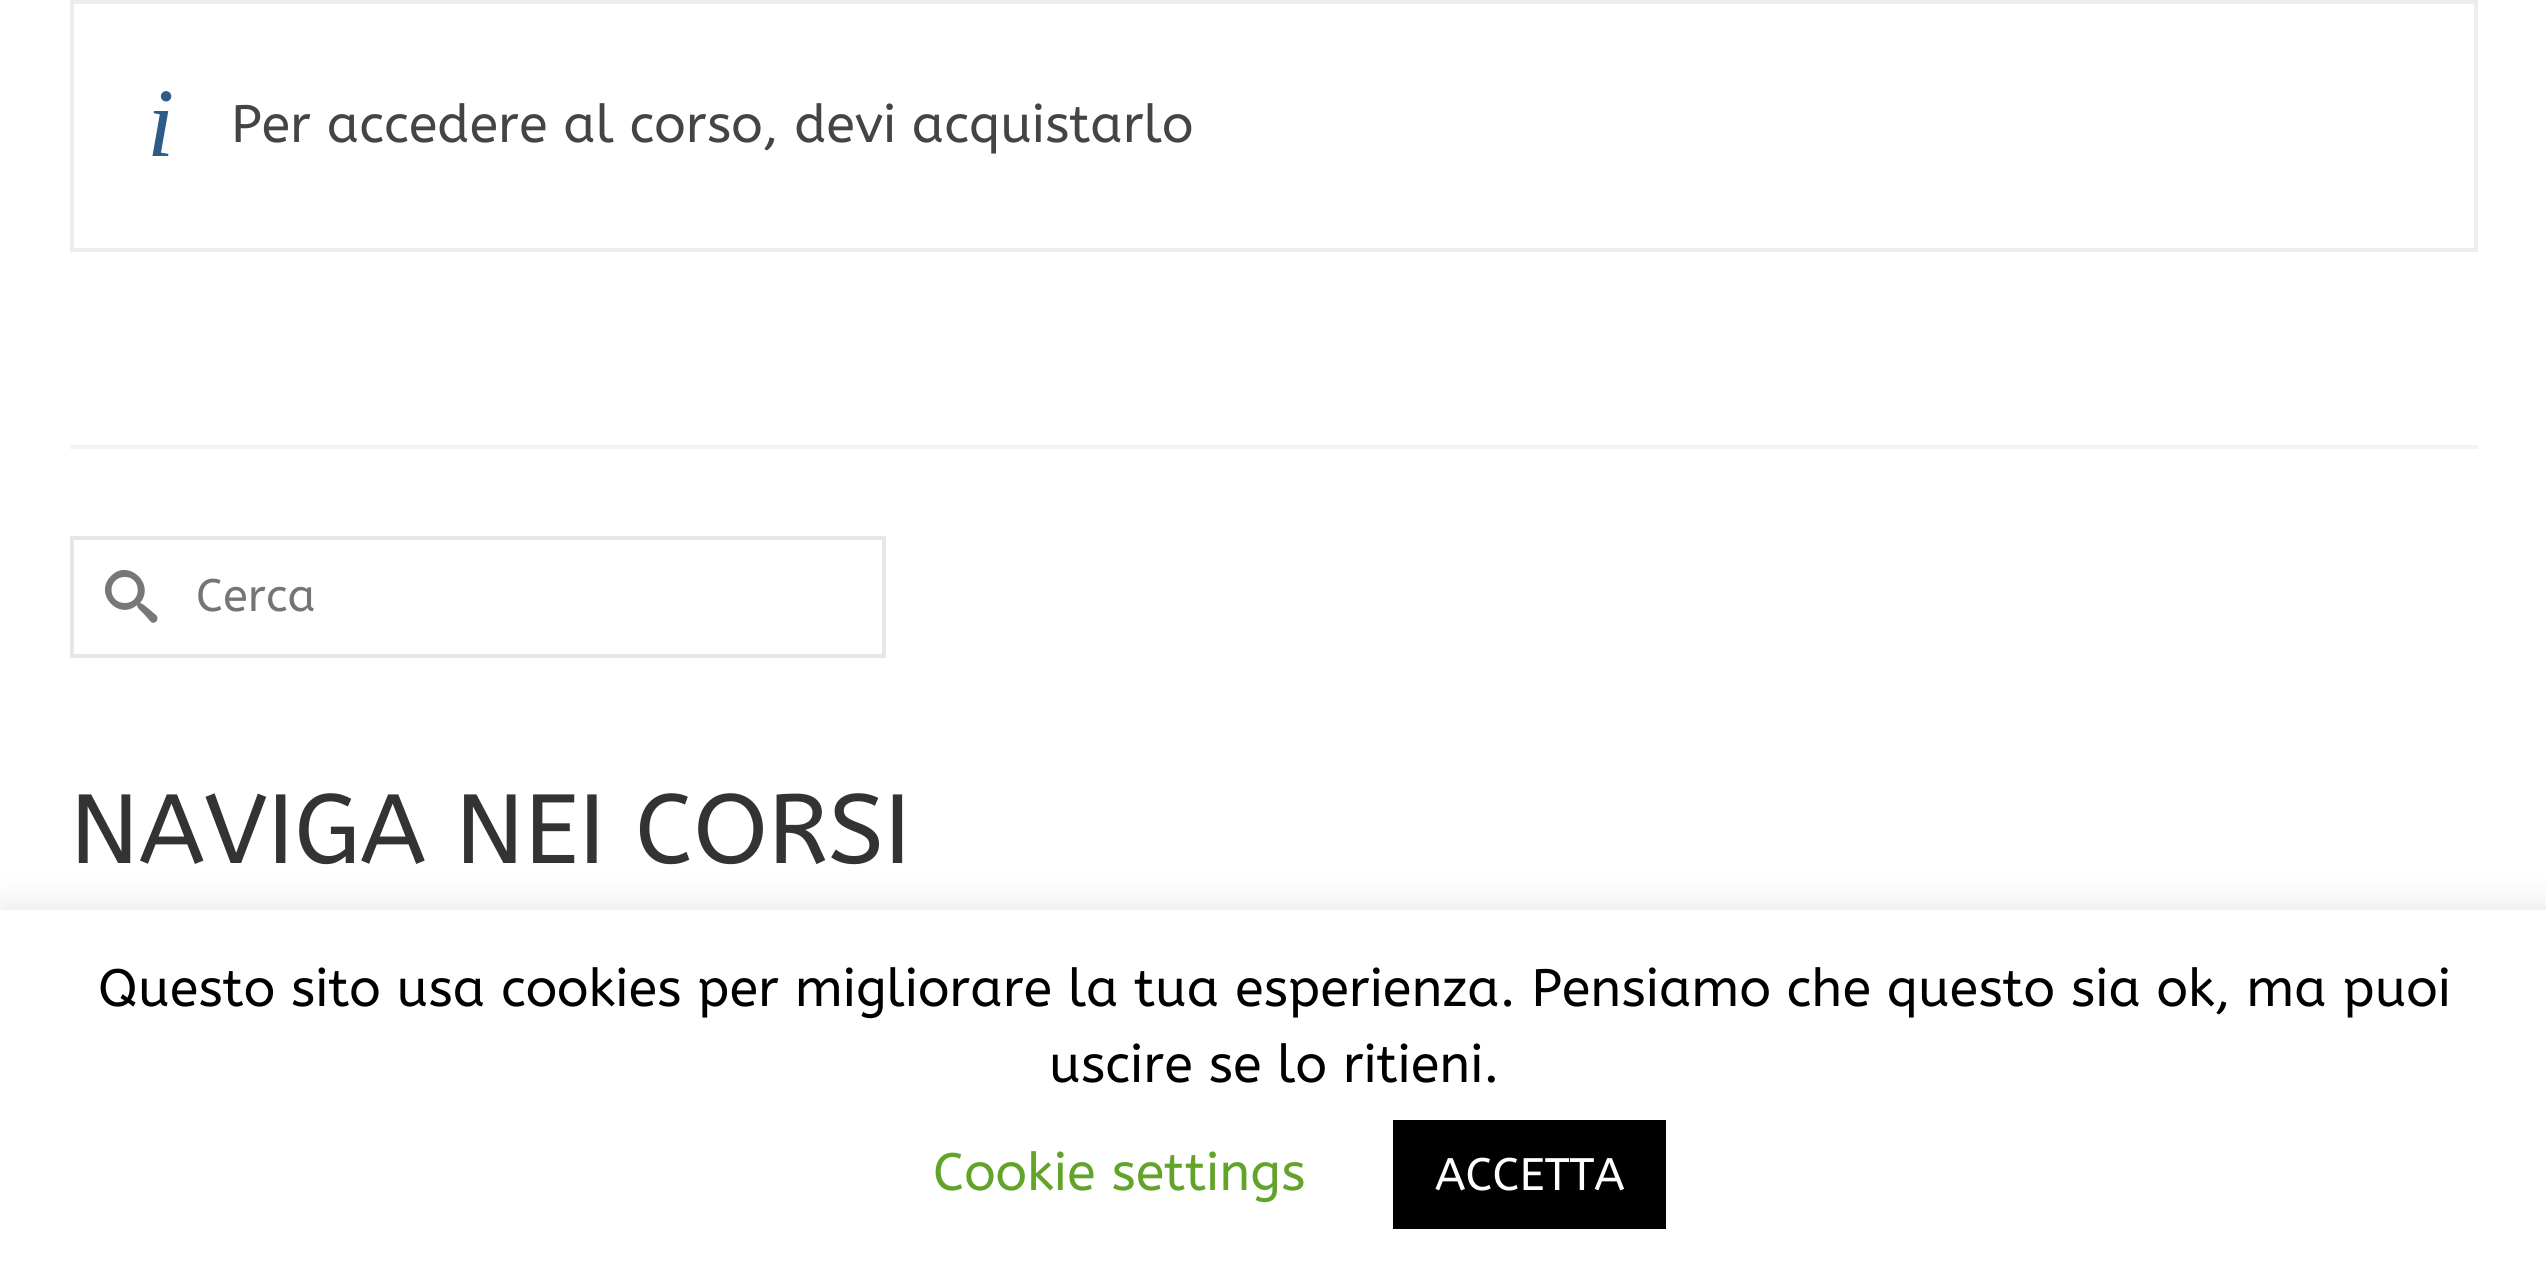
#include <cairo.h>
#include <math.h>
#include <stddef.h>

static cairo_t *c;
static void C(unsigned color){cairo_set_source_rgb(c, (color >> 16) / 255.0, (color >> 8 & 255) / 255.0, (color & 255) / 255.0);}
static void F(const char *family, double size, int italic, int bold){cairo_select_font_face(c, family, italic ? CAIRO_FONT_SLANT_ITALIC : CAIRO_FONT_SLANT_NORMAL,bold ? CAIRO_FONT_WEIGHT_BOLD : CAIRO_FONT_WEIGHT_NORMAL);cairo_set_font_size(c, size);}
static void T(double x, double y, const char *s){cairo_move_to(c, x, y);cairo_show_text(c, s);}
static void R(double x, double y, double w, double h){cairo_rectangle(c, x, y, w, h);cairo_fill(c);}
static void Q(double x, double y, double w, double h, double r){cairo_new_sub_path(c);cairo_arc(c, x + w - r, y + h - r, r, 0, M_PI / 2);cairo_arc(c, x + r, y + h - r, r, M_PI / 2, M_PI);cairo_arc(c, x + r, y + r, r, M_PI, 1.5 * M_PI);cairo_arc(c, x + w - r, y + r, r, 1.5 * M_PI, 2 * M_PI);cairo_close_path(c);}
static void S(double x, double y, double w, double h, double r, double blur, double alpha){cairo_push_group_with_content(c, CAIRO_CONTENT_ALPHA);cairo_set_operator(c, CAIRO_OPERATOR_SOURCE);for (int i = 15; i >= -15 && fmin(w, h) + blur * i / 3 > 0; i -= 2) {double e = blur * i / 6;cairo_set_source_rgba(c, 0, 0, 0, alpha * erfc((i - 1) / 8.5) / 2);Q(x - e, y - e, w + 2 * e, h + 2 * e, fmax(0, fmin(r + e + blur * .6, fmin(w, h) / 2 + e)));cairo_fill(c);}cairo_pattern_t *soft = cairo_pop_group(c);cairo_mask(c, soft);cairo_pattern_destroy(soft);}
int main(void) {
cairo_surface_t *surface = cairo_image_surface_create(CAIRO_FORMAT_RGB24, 2546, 1288);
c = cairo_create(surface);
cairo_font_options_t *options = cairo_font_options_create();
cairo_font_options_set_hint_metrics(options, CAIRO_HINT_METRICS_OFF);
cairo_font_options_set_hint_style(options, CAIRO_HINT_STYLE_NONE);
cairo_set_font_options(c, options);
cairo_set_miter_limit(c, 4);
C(0xffffff);
cairo_paint(c);
cairo_rectangle(c,72,2,2404,248);
C(0xededed);
cairo_set_line_width(c,4);
cairo_stroke(c);
F("Liberation Serif",98,1,0);
C(0x2d5c88);
T(147,156,"i");
F("ABeeZee",52.5,0,0);
C(0x444444);
T(231,142,"Per accedere al corso, devi acquistarlo");
C(0xf2f2f2);
R(70,445,2408,4);
cairo_rectangle(c,72,538,812,118);
C(0xe7e7e7);
cairo_stroke(c);
C(0x777777);
cairo_new_path(c);
cairo_move_to(c,156,615);
cairo_curve_to(c,153,613,143,603,140,603);
cairo_curve_to(c,156,584,128,558,111,576);
cairo_curve_to(c,93,594,119,621,137,605);
cairo_curve_to(c,137,608,141,611,143,613);
cairo_line_to(c,151,622);
cairo_curve_to(c,155,625,160,619,156,615);
cairo_close_path(c);
cairo_move_to(c,125,603);
cairo_curve_to(c,107,603,107,577,125,577);
cairo_curve_to(c,142,577,142,603,125,603);
cairo_close_path(c);
cairo_fill(c);
F("ABeeZee",45.5,0,0);
C(0x757575);
T(196,611,"Cerca");
F("ABeeZee",98,0,0);
C(0x333333);
T(70,863,"NAVIGA NEI CORSI");
C(0xacabab);
S(0,907,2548,378,0,17.5,.3);
C(0xffffff);
R(0,910,2546,378);
F("ABeeZee",52.5,0,0);
C(0x000000);
T(98,1006,"Questo sito usa cookies per migliorare la tua esperienza. Pensiamo che questo sia ok, ma puoi");
T(1049,1082,"uscire se lo ritieni.");
C(0x62a329);
T(933,1190,"Cookie settings");
C(0x000000);
R(1393,1120,273,109);
F("ABeeZee",45.5,0,0);
C(0xffffff);
T(1435,1190,"ACCETTA");
cairo_surface_write_to_png(surface, "o.png");
cairo_font_options_destroy(options);
cairo_destroy(c);
cairo_surface_destroy(surface);
return 0;
}
